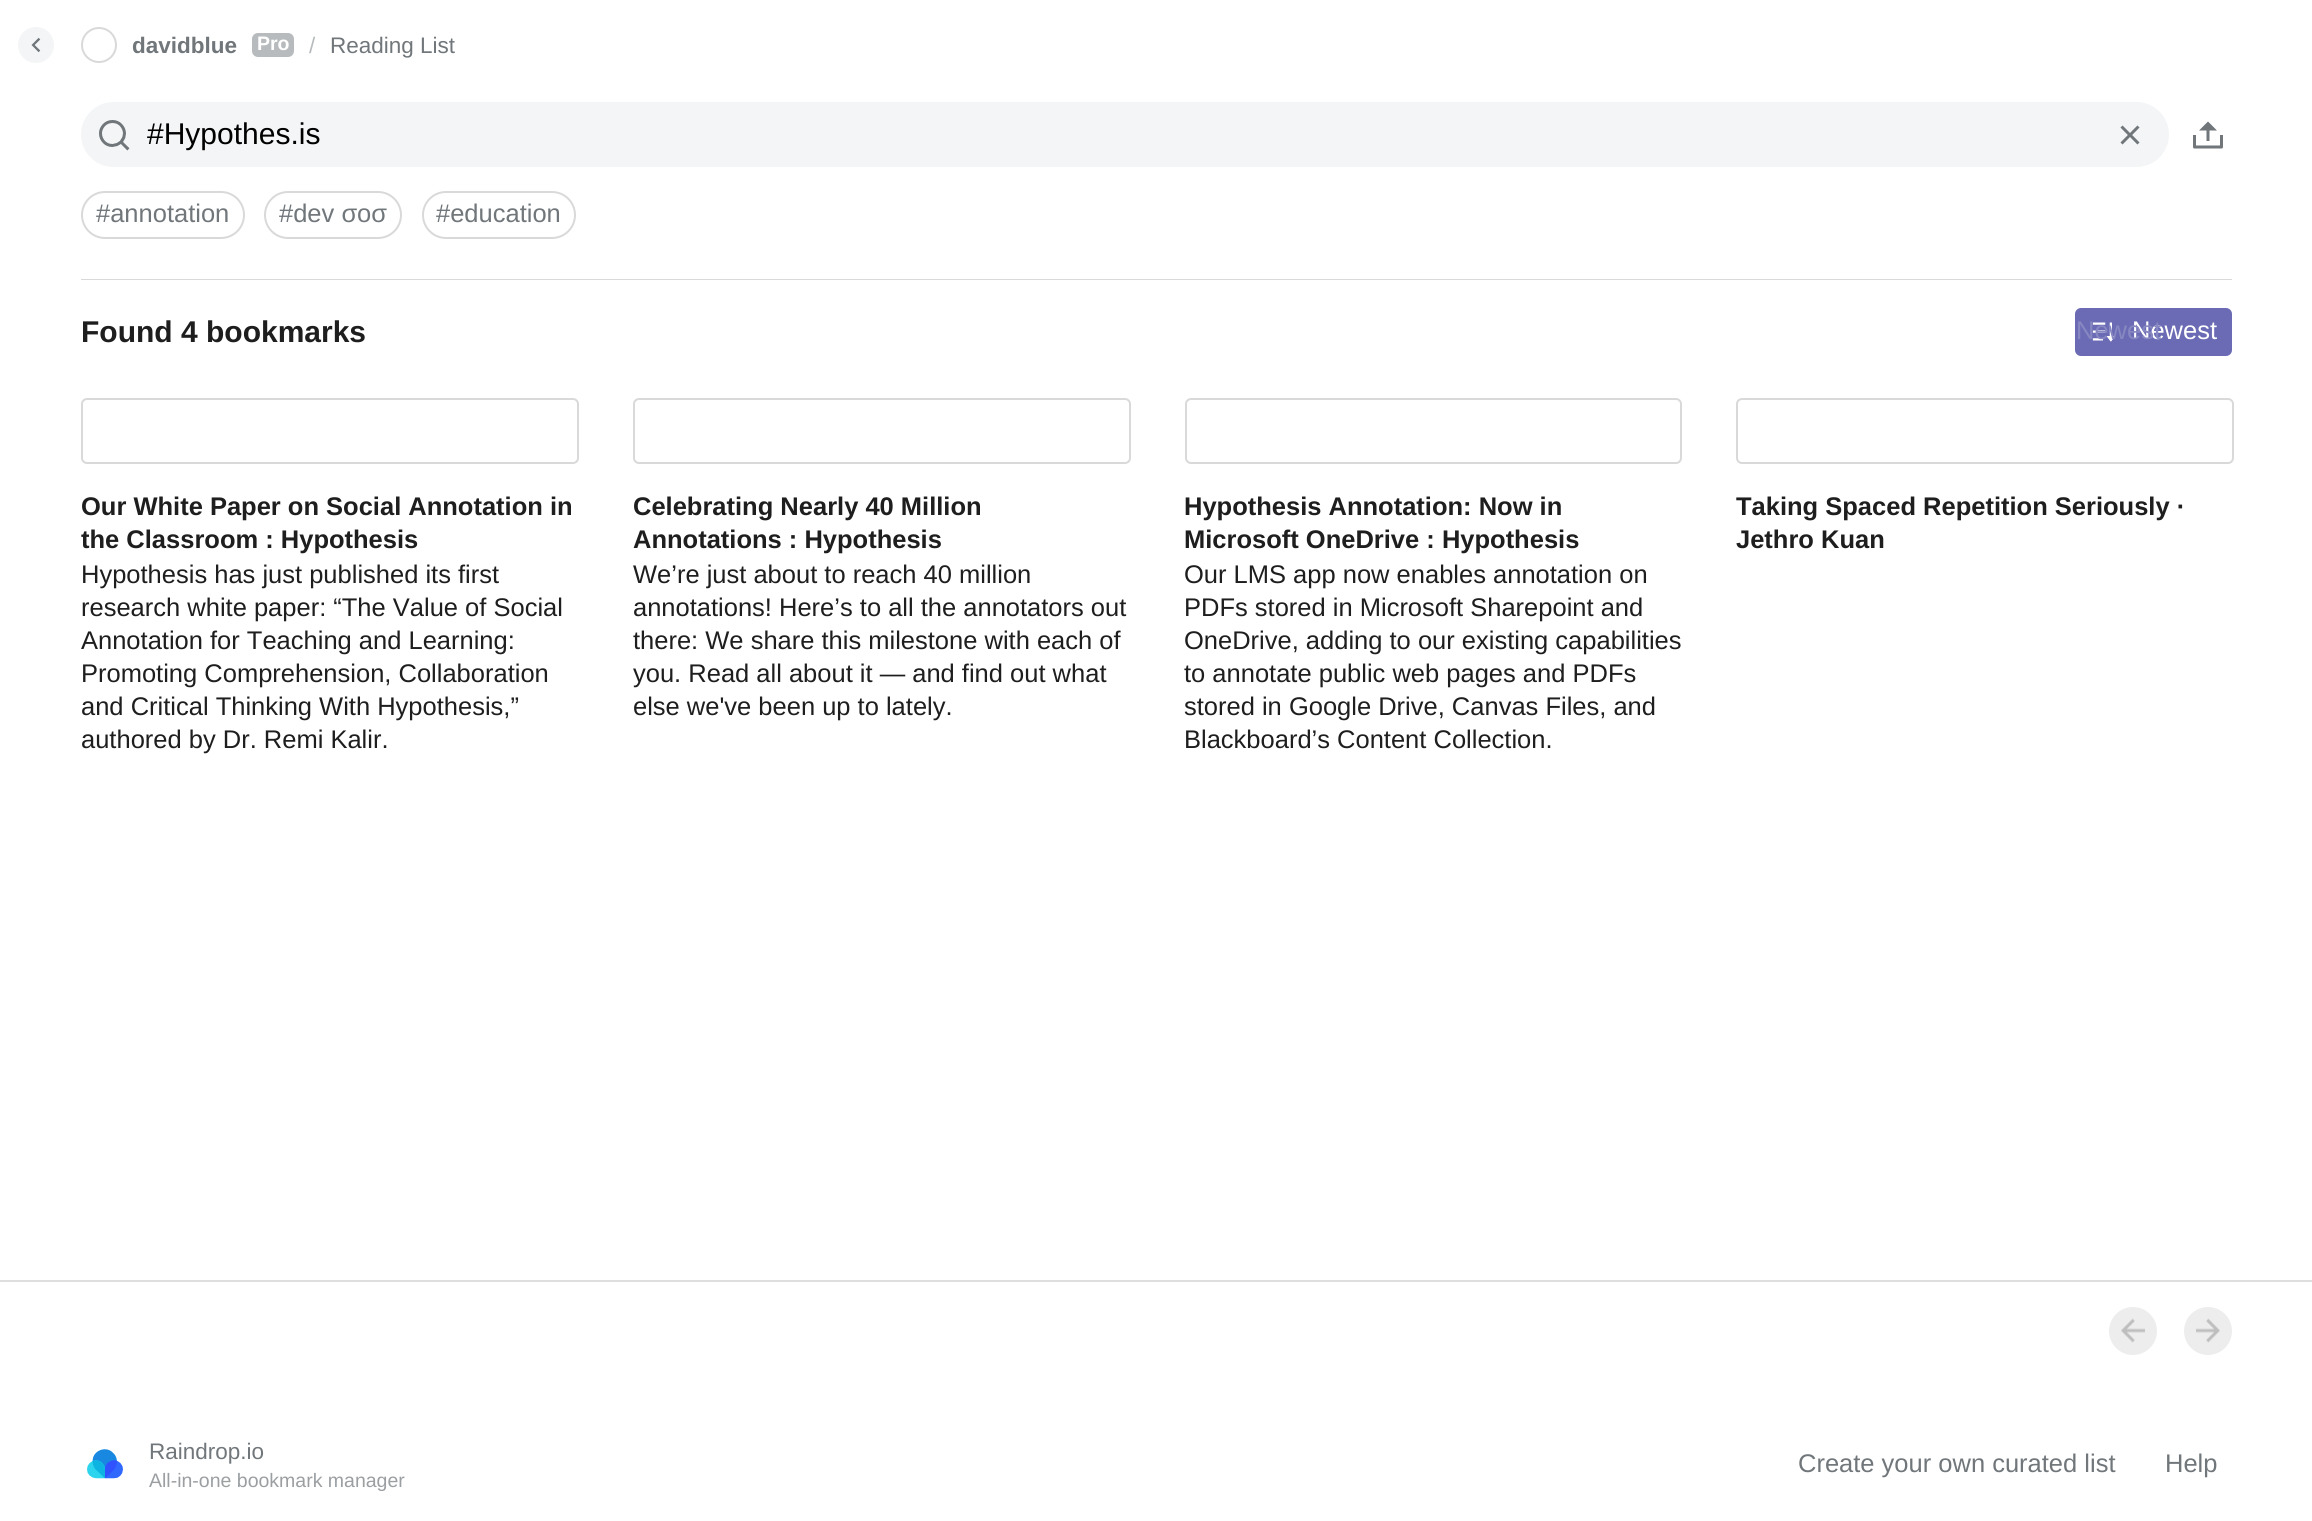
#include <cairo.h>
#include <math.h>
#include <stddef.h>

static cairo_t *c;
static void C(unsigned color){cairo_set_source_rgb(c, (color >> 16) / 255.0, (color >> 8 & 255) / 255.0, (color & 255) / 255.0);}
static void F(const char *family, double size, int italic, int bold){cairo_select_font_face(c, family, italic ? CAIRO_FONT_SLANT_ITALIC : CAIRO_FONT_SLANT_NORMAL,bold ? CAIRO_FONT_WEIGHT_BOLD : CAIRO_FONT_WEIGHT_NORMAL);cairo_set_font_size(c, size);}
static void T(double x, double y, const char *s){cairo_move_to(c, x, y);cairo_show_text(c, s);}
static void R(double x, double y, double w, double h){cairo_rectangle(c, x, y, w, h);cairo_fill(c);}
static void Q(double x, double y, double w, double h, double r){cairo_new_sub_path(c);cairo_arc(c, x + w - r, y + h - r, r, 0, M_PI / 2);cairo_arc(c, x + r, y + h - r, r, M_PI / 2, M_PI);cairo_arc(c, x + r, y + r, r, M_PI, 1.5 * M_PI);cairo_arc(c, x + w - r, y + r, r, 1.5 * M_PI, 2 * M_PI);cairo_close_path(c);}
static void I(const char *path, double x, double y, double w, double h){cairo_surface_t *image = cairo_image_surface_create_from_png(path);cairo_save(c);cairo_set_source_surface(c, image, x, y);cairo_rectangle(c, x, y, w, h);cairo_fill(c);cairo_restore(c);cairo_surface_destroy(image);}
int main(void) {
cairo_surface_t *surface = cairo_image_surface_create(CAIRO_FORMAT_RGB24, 2312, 1521);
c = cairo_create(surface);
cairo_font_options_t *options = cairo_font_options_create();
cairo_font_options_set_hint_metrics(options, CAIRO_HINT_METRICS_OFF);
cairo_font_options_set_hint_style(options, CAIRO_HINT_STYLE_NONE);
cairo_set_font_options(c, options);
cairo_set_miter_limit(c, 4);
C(0xffffff);
cairo_paint(c);
C(0xf3f5f6);
cairo_arc(c,36,45,18,0,2 * M_PI);
cairo_fill(c);
I("1.png",31,37,10,16);
cairo_arc(c,99,45,17,0,2 * M_PI);
C(0xd9d9d9);
cairo_stroke(c);
F("Liberation Sans",22.5,0,1);
C(0x70767a);
T(132,53,"davidblue");
C(0xb8bbbd);
Q(252,33,42,24,6);
cairo_fill(c);
F("Liberation Sans",19.5,0,1);
C(0xffffff);
T(257,50,"Pro");
F("Liberation Sans",22.5,0,0);
C(0xb8bbbd);
T(309,53,"/");
C(0x70767a);
T(330,53,"Reading List");
C(0xf3f5f6);
Q(81,102,2088,65,32.5);
cairo_fill(c);
I("2.png",99,120,31,31);
F("Liberation Sans",30,0,0);
C(0x000000);
T(147,144,"#Hypothes.is");
I("3.png",2120,125,20,20);
I("4.png",2193,121,30,28);
Q(82,192,162,46,23);
C(0xd9d9d9);
cairo_stroke(c);
F("Liberation Sans",25.5,0,0);
C(0x70767a);
T(96,222,"#annotation");
Q(265,192,136,46,23);
C(0xd9d9d9);
cairo_stroke(c);
C(0x70767a);
T(279,222,"#dev σοσ");
Q(423,192,152,46,23);
C(0xd9d9d9);
cairo_stroke(c);
C(0x70767a);
T(436,222,"#education");
C(0xd9d9d9);
R(81,279,2151,1);
F("Liberation Sans",30,0,1);
C(0x1e1e1e);
T(81,342,"Found 4 bookmarks");
C(0x6a6bb4);
Q(2075,308,157,48,6);
cairo_fill(c);
F("Liberation Sans",25.5,0,0);
C(0xffffff);
T(2132,339,"Newest");
I("5.png",2092,322,24,20);
C(0x8787c2);
T(2076,339,"Newest");
Q(82,399,496,64,5);
C(0xd9d9d9);
cairo_stroke(c);
F("Liberation Sans",25.5,0,1);
C(0x1e1e1e);
T(81,515,"Our White Paper on Social Annotation in");
T(81,548,"the Classroom : Hypothesis");
F("Liberation Sans",25.5,0,0);
T(81,583,"Hypothesis has just published its first");
T(81,616,"research white paper: “The Value of Social");
T(81,649,"Annotation for Teaching and Learning:");
T(81,682,"Promoting Comprehension, Collaboration");
T(81,715,"and Critical Thinking With Hypothesis,”");
T(81,748,"authored by Dr. Remi Kalir.");
Q(634,399,496,64,5);
C(0xd9d9d9);
cairo_stroke(c);
F("Liberation Sans",25.5,0,1);
C(0x1e1e1e);
T(633,515,"Celebrating Nearly 40 Million");
T(633,548,"Annotations : Hypothesis");
F("Liberation Sans",25.5,0,0);
T(633,583,"We’re just about to reach 40 million");
T(633,616,"annotations! Here’s to all the annotators out");
T(633,649,"there: We share this milestone with each of");
T(633,682,"you. Read all about it — and find out what");
T(633,715,"else we've been up to lately.");
Q(1186,399,495,64,5);
C(0xd9d9d9);
cairo_stroke(c);
F("Liberation Sans",25.5,0,1);
C(0x1e1e1e);
T(1184,515,"Hypothesis Annotation: Now in");
T(1184,548,"Microsoft OneDrive : Hypothesis");
F("Liberation Sans",25.5,0,0);
T(1184,583,"Our LMS app now enables annotation on");
T(1184,616,"PDFs stored in Microsoft Sharepoint and");
T(1184,649,"OneDrive, adding to our existing capabilities");
T(1184,682,"to annotate public web pages and PDFs");
T(1184,715,"stored in Google Drive, Canvas Files, and");
T(1184,748,"Blackboard’s Content Collection.");
Q(1737,399,496,64,5);
C(0xd9d9d9);
cairo_stroke(c);
F("Liberation Sans",25.5,0,1);
C(0x1e1e1e);
T(1736,515,"Taking Spaced Repetition Seriously ·");
T(1736,548,"Jethro Kuan");
C(0xdedede);
R(0,1280,2312,2);
C(0xededed);
cairo_new_path(c);
cairo_arc(c,2133,1331,24,0,2 * M_PI);
cairo_fill(c);
I("6.png",2121,1318,24,25);
cairo_arc(c,2208,1331,24,0,2 * M_PI);
cairo_fill(c);
I("7.png",2196,1318,24,25);
I("8.png",87,1449,36,30);
F("Liberation Sans",22.5,0,0);
C(0x70767a);
T(149,1459,"Raindrop.io");
F("Liberation Sans",19.5,0,0);
C(0x9b9fa2);
T(149,1487,"All-in-one bookmark manager");
F("Liberation Sans",25.5,0,0);
C(0x70767a);
T(1798,1472,"Create your own curated list");
T(2165,1472,"Help");
cairo_surface_write_to_png(surface, "o.png");
cairo_font_options_destroy(options);
cairo_destroy(c);
cairo_surface_destroy(surface);
return 0;
}
